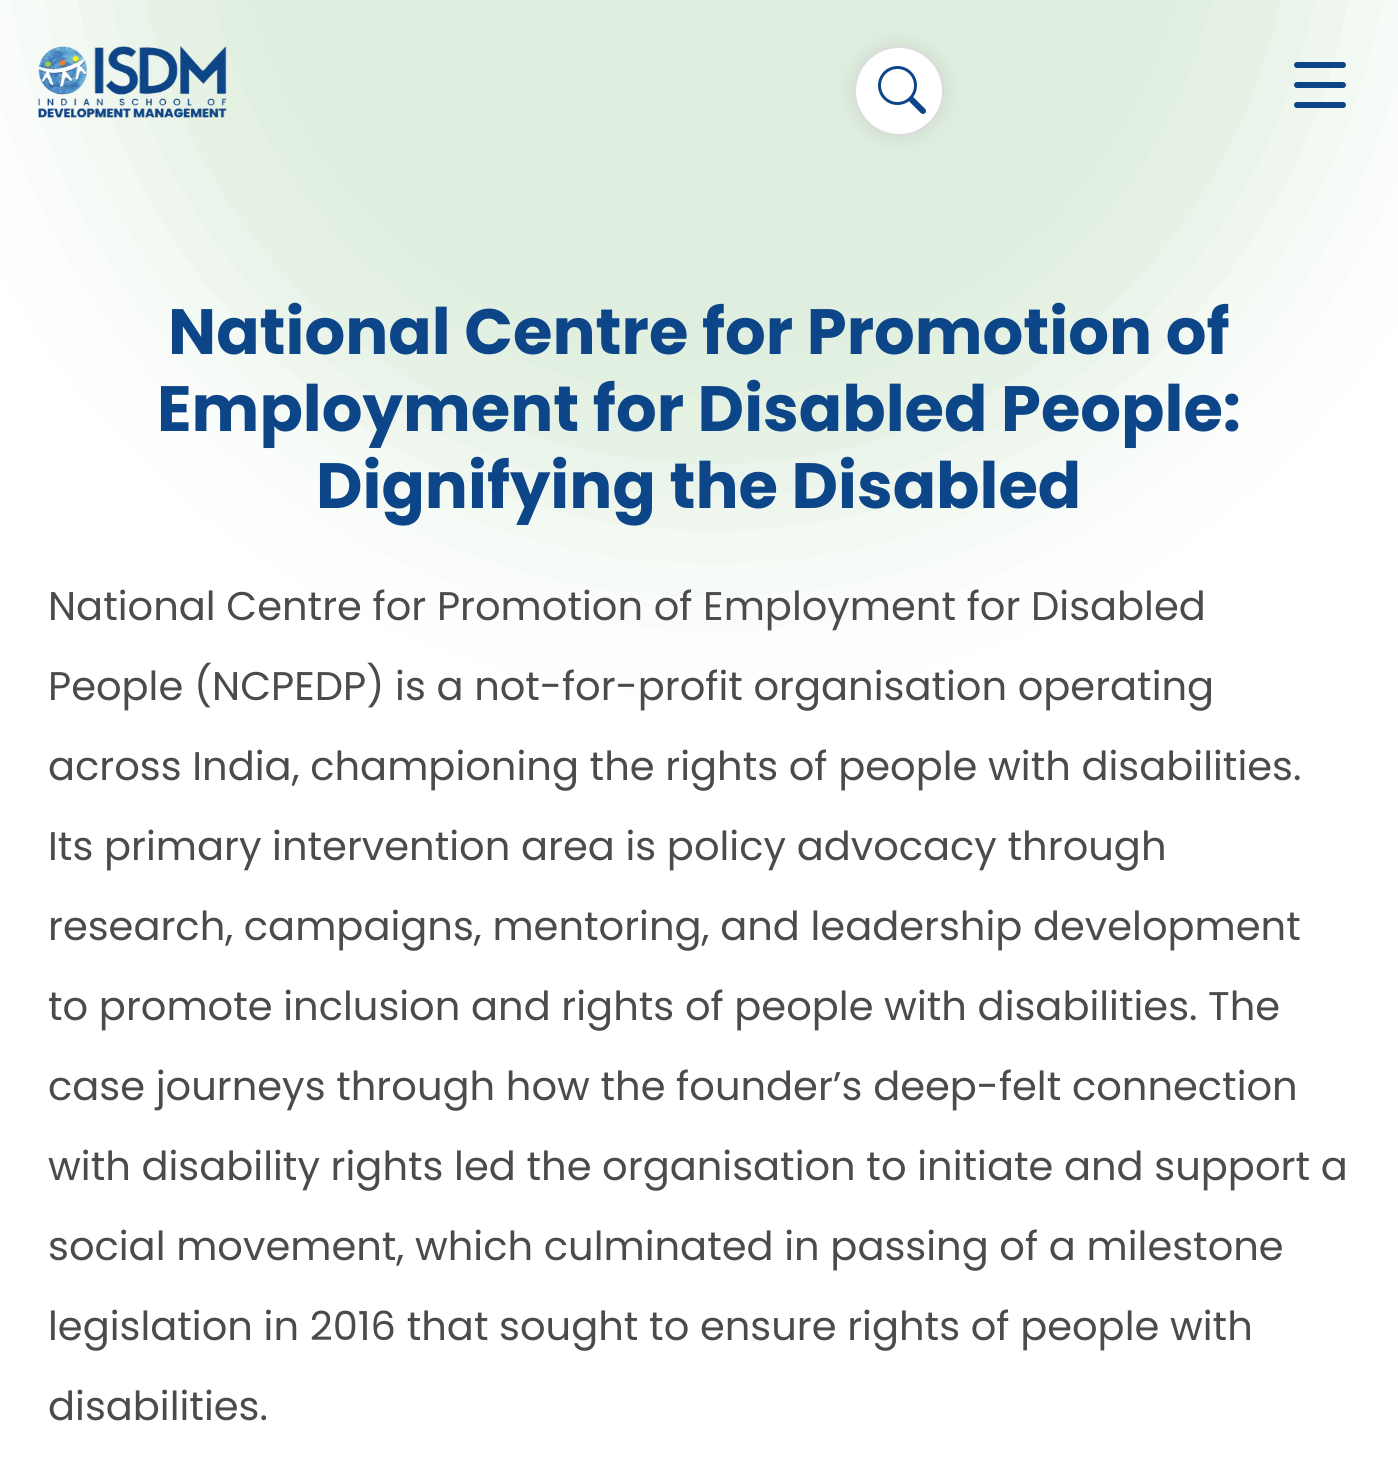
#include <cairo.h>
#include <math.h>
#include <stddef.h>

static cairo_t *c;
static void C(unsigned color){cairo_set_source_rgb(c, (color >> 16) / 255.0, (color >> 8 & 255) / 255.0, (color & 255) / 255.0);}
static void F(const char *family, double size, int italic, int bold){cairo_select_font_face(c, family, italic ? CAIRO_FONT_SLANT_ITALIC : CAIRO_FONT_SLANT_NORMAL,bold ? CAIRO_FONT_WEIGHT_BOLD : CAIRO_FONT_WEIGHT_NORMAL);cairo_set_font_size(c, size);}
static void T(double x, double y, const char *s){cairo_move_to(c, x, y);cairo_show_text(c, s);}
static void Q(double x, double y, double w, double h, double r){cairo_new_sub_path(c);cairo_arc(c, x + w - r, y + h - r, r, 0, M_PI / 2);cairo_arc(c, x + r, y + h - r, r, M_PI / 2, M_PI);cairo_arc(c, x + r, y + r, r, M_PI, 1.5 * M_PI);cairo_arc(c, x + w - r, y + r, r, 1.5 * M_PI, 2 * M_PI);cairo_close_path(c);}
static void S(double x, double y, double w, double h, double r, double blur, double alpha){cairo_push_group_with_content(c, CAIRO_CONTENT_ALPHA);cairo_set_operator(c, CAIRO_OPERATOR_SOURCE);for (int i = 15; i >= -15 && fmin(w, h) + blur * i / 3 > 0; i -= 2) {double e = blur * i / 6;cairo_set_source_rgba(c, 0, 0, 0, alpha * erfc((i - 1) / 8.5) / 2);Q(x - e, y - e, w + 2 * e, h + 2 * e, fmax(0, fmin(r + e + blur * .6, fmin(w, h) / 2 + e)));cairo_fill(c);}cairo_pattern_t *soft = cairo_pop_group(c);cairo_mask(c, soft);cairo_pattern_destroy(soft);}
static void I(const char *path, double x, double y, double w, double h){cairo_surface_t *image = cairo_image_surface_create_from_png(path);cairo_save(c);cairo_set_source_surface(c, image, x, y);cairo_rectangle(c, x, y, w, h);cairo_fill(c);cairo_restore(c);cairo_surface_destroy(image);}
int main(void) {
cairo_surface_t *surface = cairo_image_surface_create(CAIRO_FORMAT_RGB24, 1398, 1478);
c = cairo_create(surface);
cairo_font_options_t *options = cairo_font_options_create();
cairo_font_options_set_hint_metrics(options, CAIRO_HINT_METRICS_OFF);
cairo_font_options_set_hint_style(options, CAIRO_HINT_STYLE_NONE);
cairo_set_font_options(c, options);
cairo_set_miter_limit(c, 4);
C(0xffffff);
cairo_paint(c);
C(0xdfeede);
S(84,-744,1258,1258,629,100,1);
I("1.png",38,46,189,72);
C(0x000000);
S(854,46,90,90,45,9,.1);
C(0xffffff);
cairo_arc(c,899,91,44,0,2 * M_PI);
cairo_fill_preserve(c);
C(0xdcdcdc);
cairo_stroke(c);
I("2.png",878,66,48,48);
C(0x0d4688);
Q(1294,62,52,6,3);
cairo_fill(c);
Q(1294,82,52,6,3);
cairo_fill(c);
Q(1294,102,52,6,3);
cairo_fill(c);
F("Poppins",64,0,1);
T(168,354,"National Centre for Promotion of");
T(157,431,"Employment for Disabled People:");
T(316,508,"Dignifying the Disabled");
F("Poppins",40,0,0);
C(0x4b4b4b);
T(48,620,"National Centre for Promotion of Employment for Disabled");
T(48,700,"People (NCPEDP) is a not-for-profit organisation operating");
T(48,780,"across India, championing the rights of people with disabilities.");
T(48,860,"Its primary intervention area is policy advocacy through");
T(48,940,"research, campaigns, mentoring, and leadership development");
T(48,1020,"to promote inclusion and rights of people with disabilities. The");
T(48,1100,"case journeys through how the founder’s deep-felt connection");
T(48,1180,"with disability rights led the organisation to initiate and support a");
T(48,1260,"social movement, which culminated in passing of a milestone");
T(48,1340,"legislation in 2016 that sought to ensure rights of people with");
T(48,1420,"disabilities.");
cairo_surface_write_to_png(surface, "o.png");
cairo_font_options_destroy(options);
cairo_destroy(c);
cairo_surface_destroy(surface);
return 0;
}
